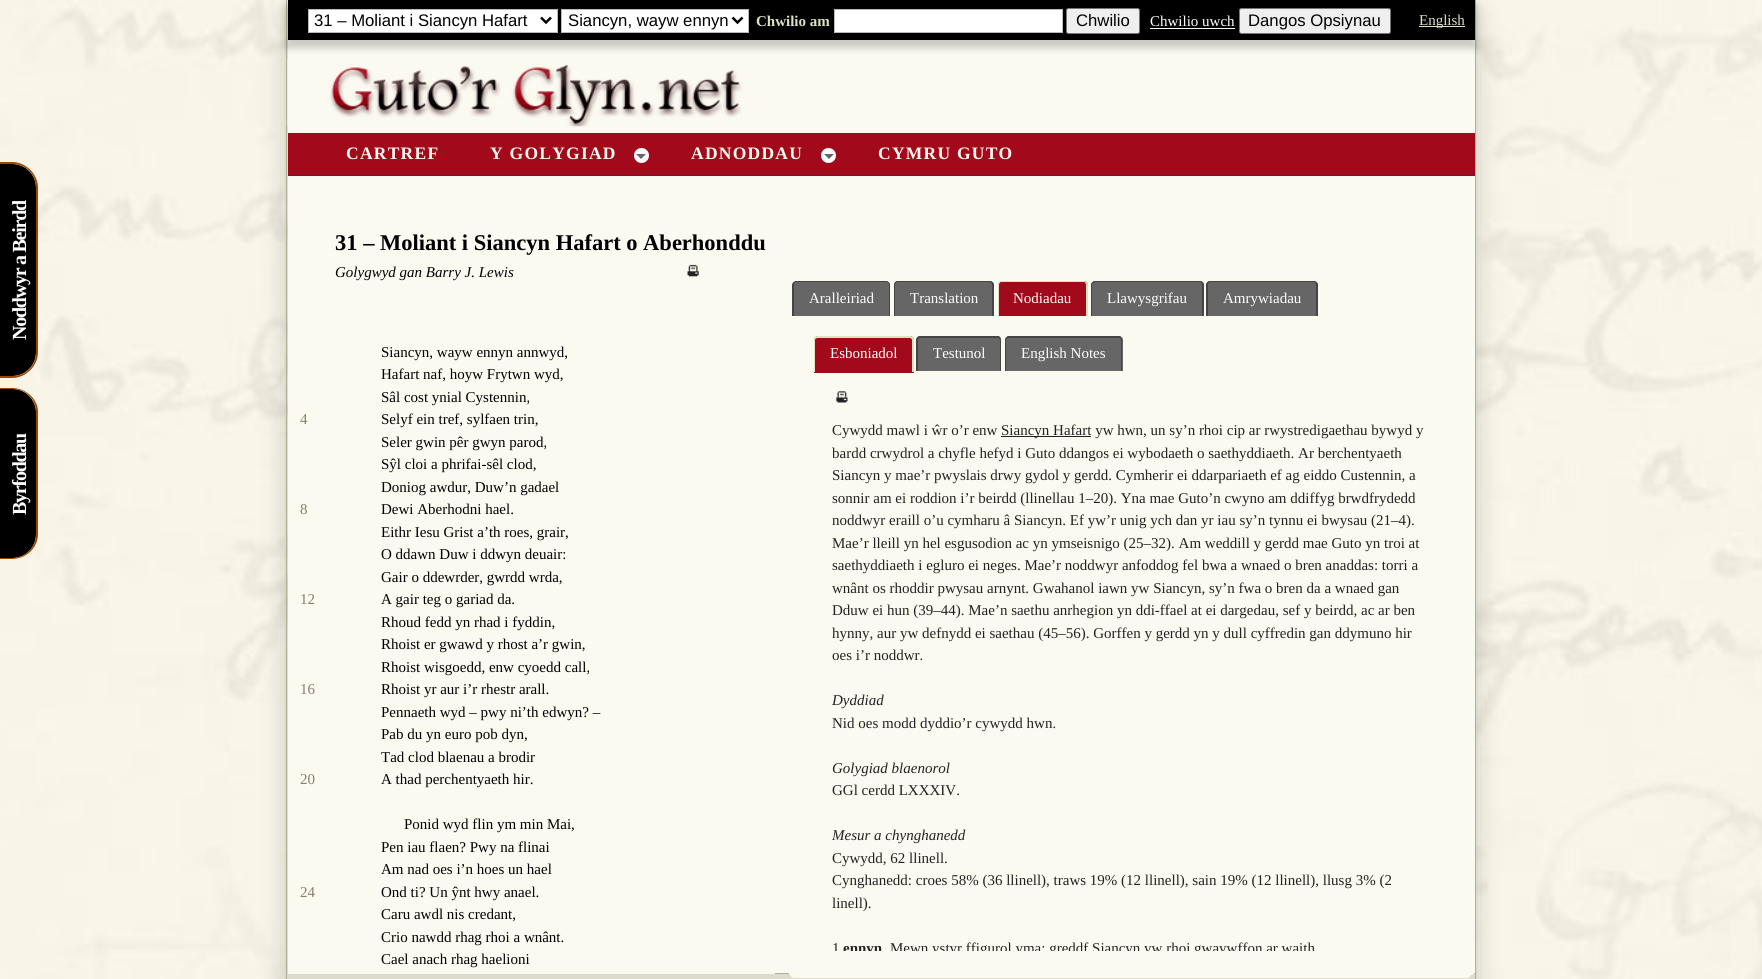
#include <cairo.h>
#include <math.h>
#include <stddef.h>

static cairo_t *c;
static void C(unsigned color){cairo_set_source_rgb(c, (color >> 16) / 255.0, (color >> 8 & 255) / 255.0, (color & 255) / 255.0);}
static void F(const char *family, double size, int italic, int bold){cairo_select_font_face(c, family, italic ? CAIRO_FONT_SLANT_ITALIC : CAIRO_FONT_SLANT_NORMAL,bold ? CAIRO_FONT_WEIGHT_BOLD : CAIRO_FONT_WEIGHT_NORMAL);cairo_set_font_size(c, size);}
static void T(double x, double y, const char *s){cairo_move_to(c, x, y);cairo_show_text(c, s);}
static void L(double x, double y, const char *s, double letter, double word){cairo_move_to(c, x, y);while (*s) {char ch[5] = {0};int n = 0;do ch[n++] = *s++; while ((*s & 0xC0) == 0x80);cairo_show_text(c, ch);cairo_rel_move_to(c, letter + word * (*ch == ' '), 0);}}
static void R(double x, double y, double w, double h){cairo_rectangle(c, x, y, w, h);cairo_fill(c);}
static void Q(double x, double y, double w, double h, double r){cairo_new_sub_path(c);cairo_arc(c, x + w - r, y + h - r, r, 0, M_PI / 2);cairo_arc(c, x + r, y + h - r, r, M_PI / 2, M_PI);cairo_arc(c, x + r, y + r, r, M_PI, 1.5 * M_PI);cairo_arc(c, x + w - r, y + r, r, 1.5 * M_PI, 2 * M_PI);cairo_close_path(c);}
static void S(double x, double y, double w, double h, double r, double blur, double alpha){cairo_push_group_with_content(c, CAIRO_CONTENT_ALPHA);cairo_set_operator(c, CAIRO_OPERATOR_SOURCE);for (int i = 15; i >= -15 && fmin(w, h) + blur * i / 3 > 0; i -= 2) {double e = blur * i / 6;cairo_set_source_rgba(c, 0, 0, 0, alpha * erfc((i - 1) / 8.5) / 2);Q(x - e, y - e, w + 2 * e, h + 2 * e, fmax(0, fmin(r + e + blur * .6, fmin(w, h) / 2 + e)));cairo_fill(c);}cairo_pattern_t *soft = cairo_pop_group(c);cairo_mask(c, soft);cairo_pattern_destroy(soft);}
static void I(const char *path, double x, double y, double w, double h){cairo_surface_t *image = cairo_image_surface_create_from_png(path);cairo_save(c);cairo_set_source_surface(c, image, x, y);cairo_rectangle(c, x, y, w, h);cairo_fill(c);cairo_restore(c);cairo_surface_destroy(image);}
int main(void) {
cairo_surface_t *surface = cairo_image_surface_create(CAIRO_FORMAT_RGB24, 1762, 979);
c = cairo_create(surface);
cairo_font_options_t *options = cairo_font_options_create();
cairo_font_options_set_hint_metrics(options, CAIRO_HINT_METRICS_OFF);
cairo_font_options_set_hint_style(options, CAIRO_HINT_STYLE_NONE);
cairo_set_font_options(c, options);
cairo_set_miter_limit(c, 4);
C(0xffffff);
cairo_paint(c);
I("1.png",0,0,1762,979);
C(0x000000);
S(286,13,1190,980,0,12.5,.2);
C(0xfbfaf1);
R(288,40,1187,933);
C(0xafae99);
R(1475,0,1,979);
R(286,0,1,979);
C(0x000000);
S(286,5,1190,43,0,4,.2);
C(0x000000);
R(288,0,1187,40);
C(0xffffff);
cairo_rectangle(c,308.5,9.5,249,23);
cairo_fill_preserve(c);
C(0xbbbbbb);
cairo_set_line_width(c,1);
cairo_stroke(c);
cairo_new_path(c);
cairo_move_to(c,541,17.5);
cairo_line_to(c,546,22.5);
cairo_line_to(c,551,17.5);
C(0x000000);
cairo_set_line_width(c,2.5);
cairo_stroke(c);
F("Liberation Sans",16.7,0,0);
T(314,26,"31 – Moliant i Siancyn Hafart");
C(0xffffff);
cairo_rectangle(c,561.5,9.5,187,23);
cairo_fill_preserve(c);
C(0xbbbbbb);
cairo_set_line_width(c,1);
cairo_stroke(c);
cairo_new_path(c);
cairo_move_to(c,732.5,17.5);
cairo_line_to(c,737.5,22.5);
cairo_line_to(c,742.5,17.5);
C(0x000000);
cairo_set_line_width(c,2.5);
cairo_stroke(c);
T(568,26,"Siancyn, wayw ennyn");
F("Liberation Serif",15,0,1);
C(0xdce3c1);
T(756,26,"Chwilio am");
C(0xffffff);
cairo_rectangle(c,834.5,9.5,228,23);
cairo_fill_preserve(c);
C(0xbbbbbb);
cairo_set_line_width(c,1);
cairo_stroke(c);
C(0xefefef);
Q(1066.5,8.5,73,25,2);
cairo_fill_preserve(c);
C(0x767676);
cairo_stroke(c);
F("Liberation Sans",16.7,0,0);
C(0x000000);
T(1076,26,"Chwilio");
F("Liberation Serif",15,0,0);
C(0xffffff);
T(1150,26,"Chwilio uwch");
R(1150,28,85,1);
C(0xefefef);
Q(1239.5,8.5,151,25,2);
cairo_fill_preserve(c);
C(0x767676);
cairo_stroke(c);
F("Liberation Sans",16.7,0,0);
C(0x000000);
T(1248,26,"Dangos Opsiynau");
C(0xdce3c1);
R(1419,26,46,1);
F("Liberation Serif",15,0,0);
T(1419,25,"English");
I("2.png",287,59,456,68);
C(0xa20a1b);
R(288,133,1187,42);
F("Liberation Serif",17.5,0,1);
C(0xfbfaf1);
L(346,159,"CARTREF",1.25,0);
L(490,159,"Y GOLYGIAD",1.25,0);
C(0xffffff);
cairo_new_path(c);
cairo_arc(c,641.5,155.5,7.5,0,2 * M_PI);
cairo_fill(c);
C(0x666666);
cairo_new_path(c);
cairo_move_to(c,636,154);
cairo_line_to(c,646,154);
cairo_line_to(c,641,159);
cairo_close_path(c);
cairo_fill(c);
C(0xfbfaf1);
L(691,159,"ADNODDAU",1.25,0);
C(0xffffff);
cairo_new_path(c);
cairo_arc(c,828.5,155.5,7.5,0,2 * M_PI);
cairo_fill(c);
C(0x666666);
cairo_new_path(c);
cairo_move_to(c,824,154);
cairo_line_to(c,834,154);
cairo_line_to(c,829,159);
cairo_close_path(c);
cairo_fill(c);
C(0xfbfaf1);
L(878,159,"CYMRU GUTO",1.25,0);
C(0x333333);
R(288,175,1187,1);
C(0x000000);
cairo_new_path(c);
cairo_move_to(c,0,164);
cairo_line_to(c,12,164);
cairo_curve_to(c,25.5,164,36,174.5,36,188);
cairo_line_to(c,36,352);
cairo_curve_to(c,36,365.5,25.5,376,12,376);
cairo_line_to(c,0,376);
cairo_close_path(c);
cairo_fill(c);
C(0x9b4700);
cairo_set_fill_rule(c,CAIRO_FILL_RULE_EVEN_ODD);
cairo_new_path(c);
cairo_move_to(c,0,162);
cairo_line_to(c,12,162);
cairo_curve_to(c,26,162,38,174,38,188);
cairo_line_to(c,38,352);
cairo_curve_to(c,38,366,26,378,12,378);
cairo_line_to(c,0,378);
cairo_close_path(c);
cairo_move_to(c,0,164);
cairo_line_to(c,12,164);
cairo_curve_to(c,26,164,36,174,36,188);
cairo_line_to(c,36,352);
cairo_curve_to(c,36,366,26,376,12,376);
cairo_line_to(c,0,376);
cairo_close_path(c);
cairo_fill(c);
F("Liberation Serif",20,0,1);
C(0xffffff);
cairo_save(c);
cairo_translate(c,26,340);
cairo_rotate(c,-90 * M_PI / 180);
L(0,0,"Noddwyr a Beirdd",-1.25,0);
cairo_restore(c);
F("Liberation Serif",22.5,0,1);
C(0x000000);
T(335,250,"31 – Moliant i Siancyn Hafart o Aberhonddu");
F("Liberation Serif",15,1,0);
T(335,277,"Golygwyd gan Barry J. Lewis");
I("3.png",687,264,12,13);
cairo_new_path(c);
cairo_move_to(c,0,389);
cairo_line_to(c,12,389);
cairo_curve_to(c,25.5,389,36,399.5,36,413);
cairo_line_to(c,36,534);
cairo_curve_to(c,36,547.5,25.5,558,12,558);
cairo_line_to(c,0,558);
cairo_close_path(c);
cairo_fill(c);
C(0x9b4700);
cairo_new_path(c);
cairo_move_to(c,0,388);
cairo_line_to(c,12,388);
cairo_curve_to(c,26,388,38,399,38,412);
cairo_line_to(c,38,534);
cairo_curve_to(c,38,548,26,559,12,559);
cairo_line_to(c,0,559);
cairo_close_path(c);
cairo_move_to(c,0,389);
cairo_line_to(c,12,389);
cairo_curve_to(c,26,389,36,399,36,412);
cairo_line_to(c,36,534);
cairo_curve_to(c,36,547,26,558,12,558);
cairo_line_to(c,0,558);
cairo_close_path(c);
cairo_fill(c);
F("Liberation Serif",20,0,1);
C(0xffffff);
cairo_save(c);
cairo_translate(c,26,515);
cairo_rotate(c,-90 * M_PI / 180);
L(0,0,"Byrfoddau",-1.25,0);
cairo_restore(c);
C(0xfbfaf1);
R(288,973,487,1);
F("Liberation Serif",15,0,0);
C(0x000000);
T(381,357,"Siancyn, wayw ennyn annwyd,");
T(381,379,"Hafart naf, hoyw Frytwn wyd,");
T(381,402,"Sâl cost ynial Cystennin,");
C(0x8b7d6b);
T(300,424,"4");
C(0x000000);
T(381,424,"Selyf ein tref, sylfaen trin,");
T(381,447,"Seler gwin pêr gwyn parod,");
T(381,469,"Sŷl cloi a phrifai-sêl clod,");
T(381,492,"Doniog awdur, Duw’n gadael");
C(0x8b7d6b);
T(300,514,"8");
C(0x000000);
T(381,514,"Dewi Aberhodni hael.");
T(381,537,"Eithr Iesu Grist a’th roes, grair,");
T(381,559,"O ddawn Duw i ddwyn deuair:");
T(381,582,"Gair o ddewrder, gwrdd wrda,");
C(0x8b7d6b);
T(300,604,"12");
C(0x000000);
T(381,604,"A gair teg o gariad da.");
T(381,627,"Rhoud fedd yn rhad i fyddin,");
T(381,649,"Rhoist er gwawd y rhost a’r gwin,");
T(381,672,"Rhoist wisgoedd, enw cyoedd call,");
C(0x8b7d6b);
T(300,694,"16");
C(0x000000);
T(381,694,"Rhoist yr aur i’r rhestr arall.");
T(381,717,"Pennaeth wyd – pwy ni’th edwyn? –");
T(381,739,"Pab du yn euro pob dyn,");
T(381,762,"Tad clod blaenau a brodir");
C(0x8b7d6b);
T(300,784,"20");
C(0x000000);
T(381,784,"A thad perchentyaeth hir.");
T(404,829,"Ponid wyd flin ym min Mai,");
T(381,852,"Pen iau flaen? Pwy na flinai");
T(381,874,"Am nad oes i’n hoes un hael");
C(0x8b7d6b);
T(300,897,"24");
C(0x000000);
T(381,897,"Ond ti? Un ŷnt hwy anael.");
T(381,919,"Caru awdl nis credant,");
T(381,942,"Crio nawdd rhag rhoi a wnânt.");
T(381,964,"Cael anach rhag haelioni");
C(0xdddccc);
R(288,974,1187,5);
C(0xafae99);
R(775,973,700,1);
C(0xfbfaf1);
Q(788,274,687,701,4);
cairo_fill(c);
C(0x666666);
cairo_new_path(c);
cairo_move_to(c,797,281);
cairo_line_to(c,886,281);
cairo_curve_to(c,888,281,890,283,890,285);
cairo_line_to(c,890,316);
cairo_line_to(c,793,316);
cairo_line_to(c,793,285);
cairo_curve_to(c,793,283,795,281,797,281);
cairo_close_path(c);
cairo_fill(c);
C(0x454545);
cairo_new_path(c);
cairo_move_to(c,796,281);
cairo_line_to(c,886,281);
cairo_curve_to(c,888,281,890,283,890,285);
cairo_line_to(c,890,316);
cairo_line_to(c,792,316);
cairo_line_to(c,792,285);
cairo_curve_to(c,792,283,794,281,796,281);
cairo_close_path(c);
cairo_move_to(c,796,282);
cairo_line_to(c,886,282);
cairo_curve_to(c,888,282,889,284,889,285);
cairo_line_to(c,889,316);
cairo_line_to(c,794,316);
cairo_line_to(c,794,285);
cairo_curve_to(c,794,284,795,282,796,282);
cairo_close_path(c);
cairo_fill(c);
C(0xffffff);
T(809,303,"Aralleiriad");
C(0x666666);
cairo_new_path(c);
cairo_move_to(c,898,281);
cairo_line_to(c,990,281);
cairo_curve_to(c,992,281,994,283,994,285);
cairo_line_to(c,994,316);
cairo_line_to(c,894,316);
cairo_line_to(c,894,285);
cairo_curve_to(c,894,283,896,281,898,281);
cairo_close_path(c);
cairo_fill(c);
C(0x454545);
cairo_new_path(c);
cairo_move_to(c,898,281);
cairo_line_to(c,990,281);
cairo_curve_to(c,992,281,994,283,994,285);
cairo_line_to(c,994,316);
cairo_line_to(c,894,316);
cairo_line_to(c,894,285);
cairo_curve_to(c,894,283,895,281,898,281);
cairo_close_path(c);
cairo_move_to(c,898,282);
cairo_line_to(c,990,282);
cairo_curve_to(c,991,282,992,284,992,285);
cairo_line_to(c,992,316);
cairo_line_to(c,895,316);
cairo_line_to(c,895,285);
cairo_curve_to(c,895,284,896,282,898,282);
cairo_close_path(c);
cairo_fill(c);
C(0xffffff);
T(910,303,"Translation");
C(0xa20a1b);
cairo_new_path(c);
cairo_move_to(c,1002,281);
cairo_line_to(c,1084,281);
cairo_curve_to(c,1086,281,1088,283,1088,285);
cairo_line_to(c,1088,318);
cairo_line_to(c,998,318);
cairo_line_to(c,998,285);
cairo_curve_to(c,998,283,1000,281,1002,281);
cairo_close_path(c);
cairo_fill(c);
C(0xdbe3c0);
cairo_new_path(c);
cairo_move_to(c,1001,281);
cairo_line_to(c,1084,281);
cairo_curve_to(c,1086,281,1088,283,1088,285);
cairo_line_to(c,1088,318);
cairo_line_to(c,998,318);
cairo_line_to(c,998,285);
cairo_curve_to(c,998,283,999,281,1001,281);
cairo_close_path(c);
cairo_move_to(c,1001,282);
cairo_line_to(c,1084,282);
cairo_curve_to(c,1085,282,1086,284,1086,285);
cairo_line_to(c,1086,318);
cairo_line_to(c,999,318);
cairo_line_to(c,999,285);
cairo_curve_to(c,999,284,1000,282,1001,282);
cairo_close_path(c);
cairo_fill(c);
C(0xffffff);
T(1013,303,"Nodiadau");
C(0x666666);
cairo_new_path(c);
cairo_move_to(c,1095,281);
cairo_line_to(c,1200,281);
cairo_curve_to(c,1202,281,1204,283,1204,285);
cairo_line_to(c,1204,316);
cairo_line_to(c,1091,316);
cairo_line_to(c,1091,285);
cairo_curve_to(c,1091,283,1093,281,1095,281);
cairo_close_path(c);
cairo_fill(c);
C(0x454545);
cairo_new_path(c);
cairo_move_to(c,1095,281);
cairo_line_to(c,1200,281);
cairo_curve_to(c,1202,281,1204,283,1204,285);
cairo_line_to(c,1204,316);
cairo_line_to(c,1091,316);
cairo_line_to(c,1091,285);
cairo_curve_to(c,1091,283,1093,281,1095,281);
cairo_close_path(c);
cairo_move_to(c,1095,282);
cairo_line_to(c,1200,282);
cairo_curve_to(c,1201,282,1202,284,1202,285);
cairo_line_to(c,1202,316);
cairo_line_to(c,1092,316);
cairo_line_to(c,1092,285);
cairo_curve_to(c,1092,284,1094,282,1095,282);
cairo_close_path(c);
cairo_fill(c);
C(0xffffff);
T(1107,303,"Llawysgrifau");
C(0x666666);
cairo_new_path(c);
cairo_move_to(c,1210,281);
cairo_line_to(c,1314,281);
cairo_curve_to(c,1316,281,1318,283,1318,285);
cairo_line_to(c,1318,316);
cairo_line_to(c,1206,316);
cairo_line_to(c,1206,285);
cairo_curve_to(c,1206,283,1208,281,1210,281);
cairo_close_path(c);
cairo_fill(c);
C(0x454545);
cairo_new_path(c);
cairo_move_to(c,1210,281);
cairo_line_to(c,1314,281);
cairo_curve_to(c,1316,281,1318,283,1318,285);
cairo_line_to(c,1318,316);
cairo_line_to(c,1206,316);
cairo_line_to(c,1206,285);
cairo_curve_to(c,1206,283,1208,281,1210,281);
cairo_close_path(c);
cairo_move_to(c,1210,282);
cairo_line_to(c,1314,282);
cairo_curve_to(c,1315,282,1316,284,1316,285);
cairo_line_to(c,1316,316);
cairo_line_to(c,1208,316);
cairo_line_to(c,1208,285);
cairo_curve_to(c,1208,284,1209,282,1210,282);
cairo_close_path(c);
cairo_fill(c);
C(0xffffff);
T(1223,303,"Amrywiadau");
C(0xfbfaf1);
Q(790,316,681,662,4);
cairo_fill(c);
C(0xa20a1b);
cairo_new_path(c);
cairo_move_to(c,818,336);
cairo_line_to(c,910,336);
cairo_curve_to(c,912,336,914,338,914,340);
cairo_line_to(c,914,373);
cairo_line_to(c,814,373);
cairo_line_to(c,814,340);
cairo_curve_to(c,814,338,816,336,818,336);
cairo_close_path(c);
cairo_fill(c);
C(0xdbe3c0);
cairo_new_path(c);
cairo_move_to(c,818,336);
cairo_line_to(c,910,336);
cairo_curve_to(c,912,336,914,338,914,340);
cairo_line_to(c,914,372);
cairo_line_to(c,814,372);
cairo_line_to(c,814,340);
cairo_curve_to(c,814,338,815,336,818,336);
cairo_close_path(c);
cairo_move_to(c,818,338);
cairo_line_to(c,910,338);
cairo_curve_to(c,911,338,912,339,912,340);
cairo_line_to(c,912,372);
cairo_line_to(c,815,372);
cairo_line_to(c,815,340);
cairo_curve_to(c,815,339,816,338,818,338);
cairo_close_path(c);
cairo_fill(c);
C(0xffffff);
T(830,358,"Esboniadol");
C(0x666666);
cairo_new_path(c);
cairo_move_to(c,920,336);
cairo_line_to(c,997,336);
cairo_curve_to(c,999,336,1001,338,1001,340);
cairo_line_to(c,1001,371);
cairo_line_to(c,916,371);
cairo_line_to(c,916,340);
cairo_curve_to(c,916,338,918,336,920,336);
cairo_close_path(c);
cairo_fill(c);
C(0x454545);
cairo_new_path(c);
cairo_move_to(c,920,336);
cairo_line_to(c,998,336);
cairo_curve_to(c,1000,336,1001,338,1001,340);
cairo_line_to(c,1001,371);
cairo_line_to(c,916,371);
cairo_line_to(c,916,340);
cairo_curve_to(c,916,338,918,336,920,336);
cairo_close_path(c);
cairo_move_to(c,920,338);
cairo_line_to(c,998,338);
cairo_curve_to(c,999,338,1000,339,1000,340);
cairo_line_to(c,1000,371);
cairo_line_to(c,918,371);
cairo_line_to(c,918,340);
cairo_curve_to(c,918,339,919,338,920,338);
cairo_close_path(c);
cairo_fill(c);
C(0xffffff);
T(933,358,"Testunol");
C(0x666666);
cairo_new_path(c);
cairo_move_to(c,1009,336);
cairo_line_to(c,1119,336);
cairo_curve_to(c,1121,336,1123,338,1123,340);
cairo_line_to(c,1123,371);
cairo_line_to(c,1005,371);
cairo_line_to(c,1005,340);
cairo_curve_to(c,1005,338,1007,336,1009,336);
cairo_close_path(c);
cairo_fill(c);
C(0x454545);
cairo_new_path(c);
cairo_move_to(c,1009,336);
cairo_line_to(c,1119,336);
cairo_curve_to(c,1121,336,1122,338,1122,340);
cairo_line_to(c,1122,371);
cairo_line_to(c,1005,371);
cairo_line_to(c,1005,340);
cairo_curve_to(c,1005,338,1007,336,1009,336);
cairo_close_path(c);
cairo_move_to(c,1009,338);
cairo_line_to(c,1119,338);
cairo_curve_to(c,1120,338,1121,339,1121,340);
cairo_line_to(c,1121,371);
cairo_line_to(c,1006,371);
cairo_line_to(c,1006,340);
cairo_curve_to(c,1006,339,1007,338,1009,338);
cairo_close_path(c);
cairo_fill(c);
C(0xffffff);
T(1021,358,"English Notes");
I("4.png",836,391,12,12);
C(0x222222);
T(832,435,"Cywydd mawl i ŵr o’r enw");
R(1001,436,90,1);
T(1001,435,"Siancyn Hafart yw hwn, un sy’n rhoi cip ar rwystredigaethau bywyd y");
T(832,458,"bardd crwydrol a chyfle hefyd i Guto ddangos ei wybodaeth o saethyddiaeth. Ar berchentyaeth");
T(832,480,"Siancyn y mae’r pwyslais drwy gydol y gerdd. Cymherir ei ddarpariaeth ef ag eiddo Custennin, a");
T(832,503,"sonnir am ei roddion i’r beirdd (llinellau 1–20). Yna mae Guto’n cwyno am ddiffyg brwdfrydedd");
T(832,525,"noddwyr eraill o’u cymharu â Siancyn. Ef yw’r unig ych dan yr iau sy’n tynnu ei bwysau (21–4).");
T(832,548,"Mae’r lleill yn hel esgusodion ac yn ymseisnigo (25–32). Am weddill y gerdd mae Guto yn troi at");
T(832,570,"saethyddiaeth i egluro ei neges. Mae’r noddwyr anfoddog fel bwa a wnaed o bren anaddas: torri a");
T(832,593,"wnânt os rhoddir pwysau arnynt. Gwahanol iawn yw Siancyn, sy’n fwa o bren da a wnaed gan");
T(832,615,"Dduw ei hun (39–44). Mae’n saethu anrhegion yn ddi-ffael at ei dargedau, sef y beirdd, ac ar ben");
T(832,638,"hynny, aur yw defnydd ei saethau (45–56). Gorffen y gerdd yn y dull cyffredin gan ddymuno hir");
T(832,660,"oes i’r noddwr.");
F("Liberation Serif",15,1,0);
T(832,705,"Dyddiad");
F("Liberation Serif",15,0,0);
T(832,728,"Nid oes modd dyddio’r cywydd hwn.");
F("Liberation Serif",15,1,0);
T(832,773,"Golygiad blaenorol");
F("Liberation Serif",15,0,0);
T(832,795,"GGl cerdd LXXXIV.");
F("Liberation Serif",15,1,0);
T(832,840,"Mesur a chynghanedd");
F("Liberation Serif",15,0,0);
T(832,863,"Cywydd, 62 llinell.");
T(832,885,"Cynghanedd: croes 58% (36 llinell), traws 19% (12 llinell), sain 19% (12 llinell), llusg 3% (2");
T(832,908,"linell).");
cairo_save(c);
cairo_set_fill_rule(c,CAIRO_FILL_RULE_WINDING);
cairo_rectangle(c,811,371,639,580);
cairo_clip(c);
T(832,953,"1");
F("Liberation Serif",15,0,1);
T(843,953,"ennyn");
F("Liberation Serif",15,0,0);
T(890,953,"Mewn ystyr ffigurol yma: greddf Siancyn yw rhoi gwaywffon ar waith");
cairo_restore(c);
cairo_surface_write_to_png(surface, "o.png");
cairo_font_options_destroy(options);
cairo_destroy(c);
cairo_surface_destroy(surface);
return 0;
}
